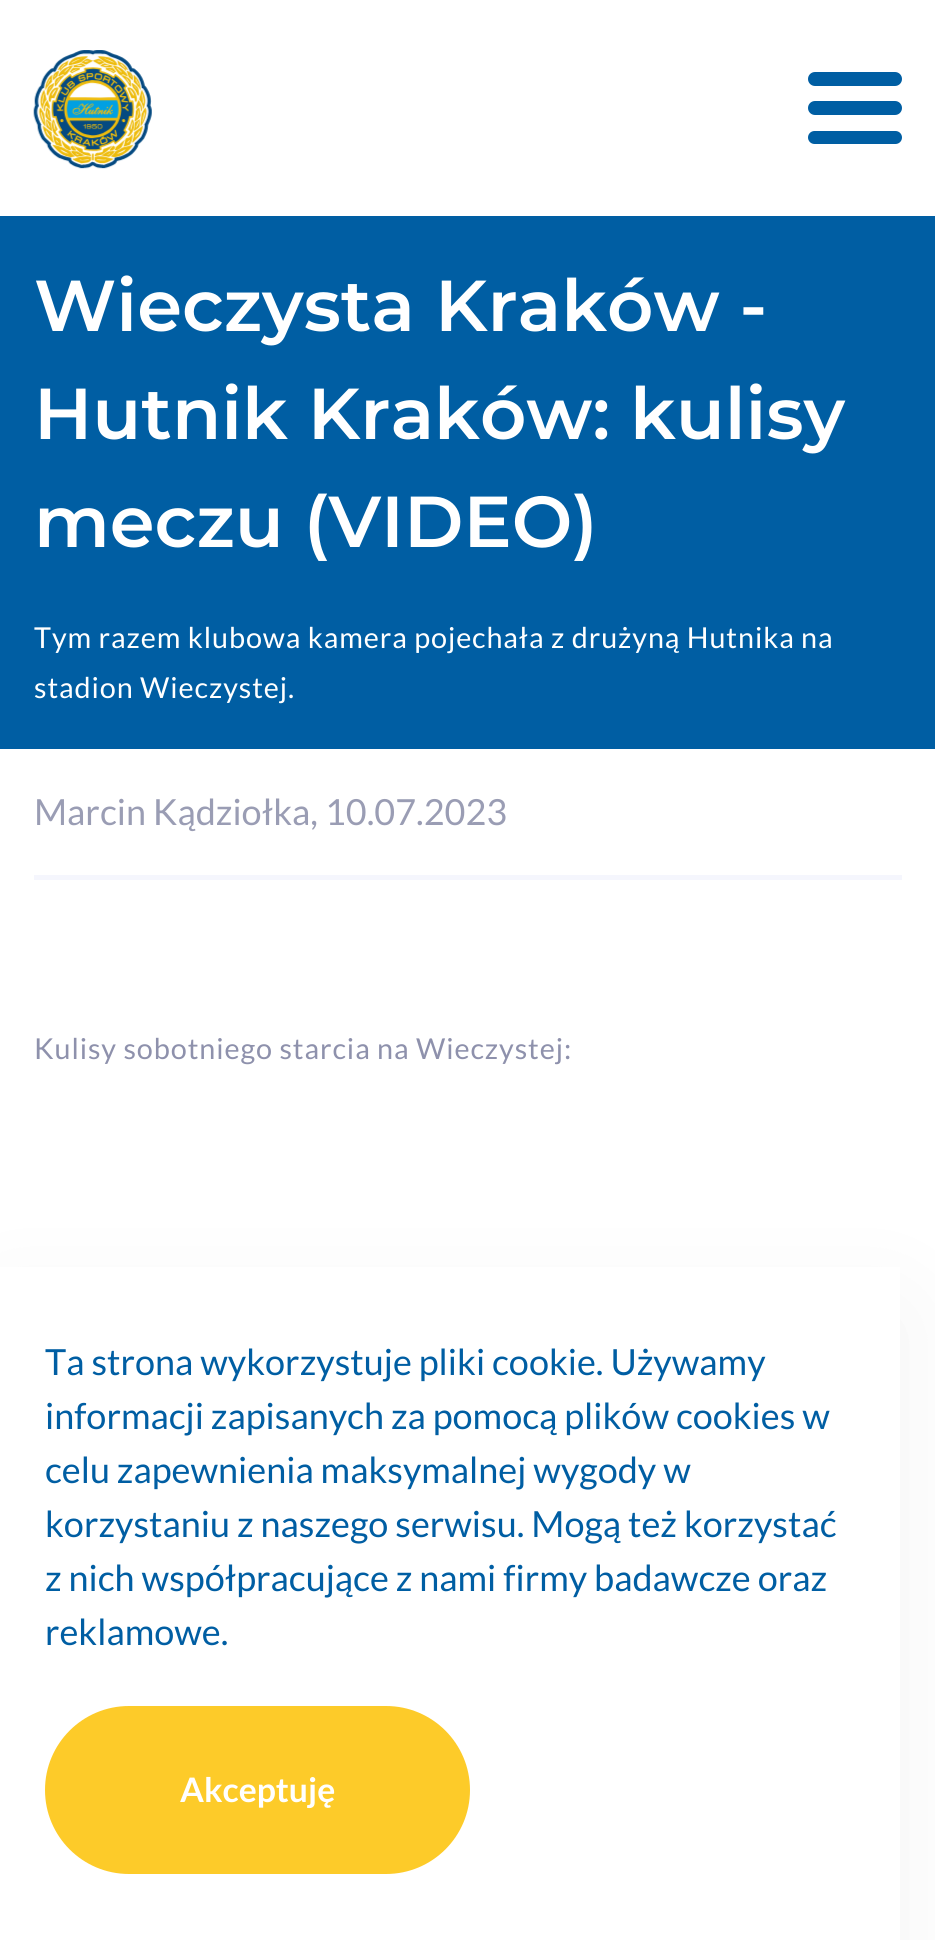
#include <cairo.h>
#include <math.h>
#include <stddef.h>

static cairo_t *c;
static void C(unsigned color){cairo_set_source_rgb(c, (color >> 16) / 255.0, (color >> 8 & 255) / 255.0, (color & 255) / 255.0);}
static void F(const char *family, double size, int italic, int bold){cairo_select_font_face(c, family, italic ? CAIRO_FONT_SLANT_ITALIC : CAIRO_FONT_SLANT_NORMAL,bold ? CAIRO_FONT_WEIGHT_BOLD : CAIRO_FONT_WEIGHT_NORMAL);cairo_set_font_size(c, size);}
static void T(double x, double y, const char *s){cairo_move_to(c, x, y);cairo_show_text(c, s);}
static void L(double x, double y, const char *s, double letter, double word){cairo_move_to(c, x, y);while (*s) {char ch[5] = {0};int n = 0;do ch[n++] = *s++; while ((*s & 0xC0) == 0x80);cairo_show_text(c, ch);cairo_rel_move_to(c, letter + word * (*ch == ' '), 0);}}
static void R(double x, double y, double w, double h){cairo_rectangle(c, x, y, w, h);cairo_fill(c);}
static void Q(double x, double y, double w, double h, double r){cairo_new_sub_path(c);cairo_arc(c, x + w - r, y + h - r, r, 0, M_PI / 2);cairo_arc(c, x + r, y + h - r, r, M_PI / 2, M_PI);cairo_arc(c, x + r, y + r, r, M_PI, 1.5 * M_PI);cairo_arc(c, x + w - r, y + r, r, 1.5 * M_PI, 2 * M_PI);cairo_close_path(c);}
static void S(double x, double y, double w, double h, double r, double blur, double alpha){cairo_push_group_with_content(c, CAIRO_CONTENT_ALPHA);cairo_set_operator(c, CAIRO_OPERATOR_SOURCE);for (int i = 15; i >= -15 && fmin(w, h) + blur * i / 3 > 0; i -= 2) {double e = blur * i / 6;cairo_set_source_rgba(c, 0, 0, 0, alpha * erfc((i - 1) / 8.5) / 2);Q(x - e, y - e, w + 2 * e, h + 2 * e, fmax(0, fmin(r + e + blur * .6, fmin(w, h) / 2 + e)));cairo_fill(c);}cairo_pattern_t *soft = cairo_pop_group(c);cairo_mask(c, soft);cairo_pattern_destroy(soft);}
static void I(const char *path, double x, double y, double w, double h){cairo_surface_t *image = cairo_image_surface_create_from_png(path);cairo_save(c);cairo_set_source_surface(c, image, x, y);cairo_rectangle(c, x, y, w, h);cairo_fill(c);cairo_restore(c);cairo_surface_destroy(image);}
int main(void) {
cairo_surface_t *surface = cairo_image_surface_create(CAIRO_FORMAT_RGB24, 935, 1940);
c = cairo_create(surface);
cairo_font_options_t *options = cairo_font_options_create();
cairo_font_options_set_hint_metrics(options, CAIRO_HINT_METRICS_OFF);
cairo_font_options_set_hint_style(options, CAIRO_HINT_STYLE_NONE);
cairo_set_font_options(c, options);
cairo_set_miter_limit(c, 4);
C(0xffffff);
cairo_paint(c);
I("1.png",33,50,119,119);
C(0x005ea3);
Q(808,72,94,14,7);
cairo_fill(c);
Q(808,101,94,14,7);
cairo_fill(c);
Q(808,131,94,13,6.5);
cairo_fill(c);
R(0,216,935,533);
F("Montserrat SemiBold",72,0,0);
C(0xffffff);
T(34,331,"Wieczysta Kraków -");
T(34,439,"Hutnik Kraków: kulisy");
T(34,547,"meczu (VIDEO)");
F("Lato",28.8,0,0);
L(34,648,"Tym razem klubowa kamera pojechała z drużyną Hutnika na",.9,0);
L(34,698,"stadion Wieczystej.",.9,0);
C(0xf5f6fd);
R(34,875,868,5);
F("Lato",36,0,0);
C(0x9a9db4);
T(34,825,"Marcin Kądziołka, 10.07.2023");
F("Lato",28.8,0,0);
C(0x8e91ac);
L(34,1059,"Kulisy sobotniego starcia na Wieczystej:",.9,0);
C(0x000000);
S(0,1312,900,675,0,56,.05);
C(0xffffff);
R(0,1267,900,673);
F("Lato",36,0,0);
C(0x005ea3);
T(45,1375,"Ta strona wykorzystuje pliki cookie. Używamy");
T(45,1429,"informacji zapisanych za pomocą plików cookies w");
T(45,1483,"celu zapewnienia maksymalnej wygody w");
T(45,1537,"korzystaniu z naszego serwisu. Mogą też korzystać");
T(45,1591,"z nich współpracujące z nami firmy badawcze oraz");
T(45,1645,"reklamowe.");
C(0xfdcb29);
Q(45,1706,425,168,84);
cairo_fill(c);
F("Lato",33.75,0,1);
C(0xffffff);
T(180,1802,"Akceptuję");
cairo_surface_write_to_png(surface, "o.png");
cairo_font_options_destroy(options);
cairo_destroy(c);
cairo_surface_destroy(surface);
return 0;
}
